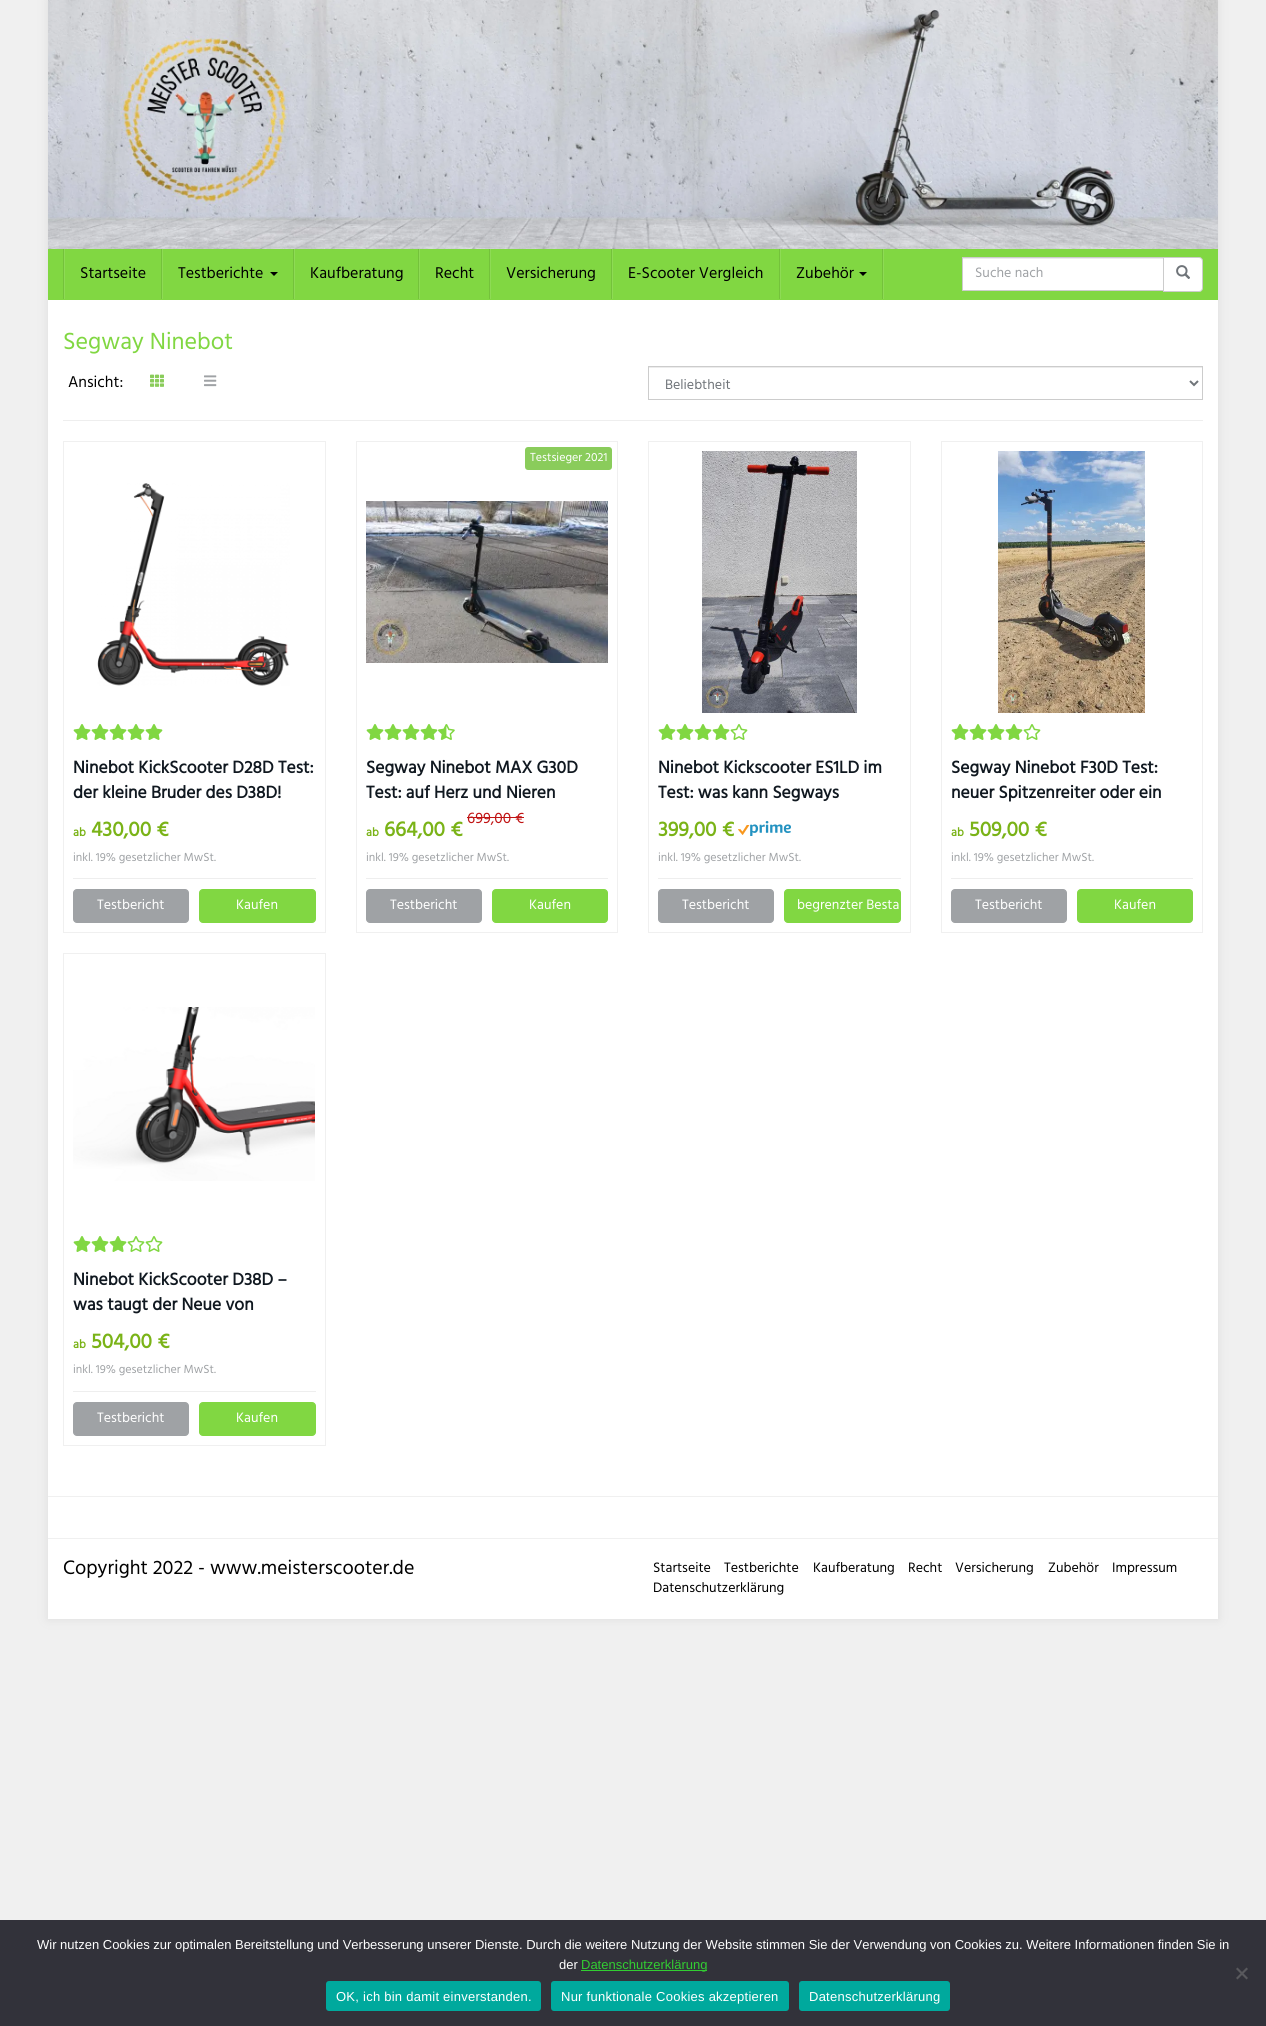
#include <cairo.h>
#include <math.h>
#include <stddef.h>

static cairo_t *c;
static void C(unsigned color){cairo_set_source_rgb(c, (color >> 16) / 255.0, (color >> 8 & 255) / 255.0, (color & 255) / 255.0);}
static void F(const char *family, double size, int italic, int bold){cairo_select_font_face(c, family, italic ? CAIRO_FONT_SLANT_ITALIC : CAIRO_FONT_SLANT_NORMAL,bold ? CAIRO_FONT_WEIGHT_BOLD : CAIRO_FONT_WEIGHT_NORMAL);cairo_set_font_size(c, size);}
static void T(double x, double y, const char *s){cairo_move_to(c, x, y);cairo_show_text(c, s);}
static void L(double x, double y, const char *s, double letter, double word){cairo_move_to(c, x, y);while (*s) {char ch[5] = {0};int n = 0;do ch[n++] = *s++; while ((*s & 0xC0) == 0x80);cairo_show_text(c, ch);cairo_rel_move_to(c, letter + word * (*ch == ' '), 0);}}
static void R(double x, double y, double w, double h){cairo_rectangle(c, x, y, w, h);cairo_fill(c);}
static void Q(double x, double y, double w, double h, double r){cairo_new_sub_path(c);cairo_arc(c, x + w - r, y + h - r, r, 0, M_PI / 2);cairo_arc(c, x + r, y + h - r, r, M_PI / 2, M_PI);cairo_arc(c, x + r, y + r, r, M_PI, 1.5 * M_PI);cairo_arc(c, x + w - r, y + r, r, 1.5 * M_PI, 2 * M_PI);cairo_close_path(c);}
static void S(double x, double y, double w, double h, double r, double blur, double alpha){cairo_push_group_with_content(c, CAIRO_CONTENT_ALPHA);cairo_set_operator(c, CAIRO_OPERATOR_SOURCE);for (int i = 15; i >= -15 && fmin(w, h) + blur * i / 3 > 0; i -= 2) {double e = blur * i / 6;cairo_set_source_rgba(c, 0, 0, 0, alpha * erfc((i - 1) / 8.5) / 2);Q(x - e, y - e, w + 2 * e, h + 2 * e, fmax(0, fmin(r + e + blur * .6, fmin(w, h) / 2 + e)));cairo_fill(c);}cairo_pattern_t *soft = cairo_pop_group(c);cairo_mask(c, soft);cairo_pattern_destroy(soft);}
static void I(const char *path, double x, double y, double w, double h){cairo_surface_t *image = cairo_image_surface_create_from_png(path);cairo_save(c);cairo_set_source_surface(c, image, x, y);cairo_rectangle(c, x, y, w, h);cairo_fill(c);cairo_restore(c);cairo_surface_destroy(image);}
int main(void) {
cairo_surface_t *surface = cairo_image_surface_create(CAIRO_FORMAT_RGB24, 1266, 2026);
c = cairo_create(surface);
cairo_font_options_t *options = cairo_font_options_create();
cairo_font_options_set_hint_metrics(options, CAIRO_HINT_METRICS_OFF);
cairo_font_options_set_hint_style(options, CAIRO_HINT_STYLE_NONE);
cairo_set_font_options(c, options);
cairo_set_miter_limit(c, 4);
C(0xf0f0f0);
cairo_paint(c);
C(0xdddddd);
S(48,0,1170,1619,0,5,1);
C(0xffffff);
R(48,300,1170,1319);
I("1.png",48,0,1170,249);
C(0x81d742);
R(48,249,1170,51);
C(0x8edb55);
R(883,249,1,50);
C(0x74c23b);
R(63,249,1,50);
R(161,249,1,50);
C(0x8edb55);
R(64,249,1,50);
F("Hind",16,0,0);
C(0x000000);
T(80,278,"Startseite");
C(0x74c23b);
R(293,249,1,50);
C(0x8edb55);
R(162,249,1,50);
C(0x000000);
T(178,278,"Testberichte");
cairo_new_path(c);
cairo_move_to(c,270,272);
cairo_line_to(c,278,272);
cairo_line_to(c,274,276);
cairo_close_path(c);
cairo_fill(c);
C(0x74c23b);
R(418,249,1,50);
C(0x8edb55);
R(294,249,1,50);
C(0x000000);
T(310,278,"Kaufberatung");
C(0x74c23b);
R(489,249,1,50);
C(0x8edb55);
R(419,249,1,50);
C(0x000000);
T(435,278,"Recht");
C(0x74c23b);
R(611,249,1,50);
C(0x8edb55);
R(490,249,1,50);
C(0x000000);
T(506,278,"Versicherung");
C(0x74c23b);
R(779,249,1,50);
C(0x8edb55);
R(612,249,1,50);
C(0x000000);
T(628,278,"E-Scooter Vergleich");
C(0x74c23b);
R(882,249,1,50);
C(0x8edb55);
R(780,249,1,50);
C(0x000000);
T(796,278,"Zubehör");
cairo_new_path(c);
cairo_move_to(c,859,272);
cairo_line_to(c,867,272);
cairo_line_to(c,863,276);
cairo_close_path(c);
cairo_fill(c);
C(0xffffff);
R(963,259,200,31);
C(0xececec);
R(963,258,200,1);
cairo_rectangle(c,962.5,257.5,201,33);
C(0xcccccc);
cairo_set_line_width(c,1);
cairo_stroke(c);
F("Hind",14,0,0);
C(0x9fa2a5);
T(975,277,"Suche nach");
C(0xffffff);
cairo_new_path(c);
cairo_move_to(c,1163.5,257.5);
cairo_line_to(c,1199,257.5);
cairo_curve_to(c,1201,257.5,1202.5,259,1202.5,261);
cairo_line_to(c,1202.5,288);
cairo_curve_to(c,1202.5,290,1201,291.5,1199,291.5);
cairo_line_to(c,1163.5,291.5);
cairo_close_path(c);
cairo_fill_preserve(c);
C(0xcccccc);
cairo_stroke(c);
I("2.png",1176,265,14,14);
F("Hind",24,0,0);
C(0x81d742);
T(63,349,"Segway Ninebot");
F("Hind",16,0,0);
C(0x000000);
T(68,387,"Ansicht:");
I("3.png",150,374,14,13);
I("4.png",204,375,13,12);
C(0xececec);
R(649,367,553,1);
cairo_rectangle(c,648.5,366.5,554,33);
C(0xcccccc);
cairo_stroke(c);
cairo_new_path(c);
cairo_move_to(c,1190,381);
cairo_line_to(c,1194,385);
cairo_line_to(c,1198,381);
C(0x6f7479);
cairo_set_line_width(c,2);
cairo_stroke(c);
F("Hind",14,0,0);
T(665,389,"Beliebtheit");
C(0xeeeeee);
R(63,420,1140,1);
cairo_rectangle(c,63.5,441.5,262,491);
C(0xf0f0f0);
cairo_set_line_width(c,1);
cairo_stroke(c);
I("5.png",97,483,193,203);
I("6.png",73,724,18,16);
I("6.png",91,724,18,16);
I("6.png",109,724,18,16);
I("6.png",127,724,18,16);
I("6.png",145,724,18,16);
F("Hind",17.6,0,1);
C(0x101820);
T(73,773,"Ninebot KickScooter D28D Test:");
T(73,798,"der kleine Bruder des D38D!");
F("Hind",12,0,1);
C(0x7ab317);
T(73,836,"ab");
F("Hind",21,0,1);
T(91,836,"430,00 €");
F("Hind",12,0,0);
C(0x9fa2a5);
T(73,861,"inkl. 19% gesetzlicher MwSt.");
C(0xeeeeee);
R(73,878,243,1);
C(0x9fa2a5);
Q(73.5,889.5,115,33,3.5);
cairo_fill_preserve(c);
cairo_stroke(c);
F("Hind",14,0,0);
C(0xffffff);
T(97,909,"Testbericht");
C(0x81d742);
Q(199.5,889.5,116,33,3.5);
cairo_fill_preserve(c);
cairo_stroke(c);
C(0xffffff);
T(236,909,"Kaufen");
cairo_rectangle(c,356.5,441.5,261,491);
C(0xf0f0f0);
cairo_stroke(c);
C(0x8acc5b);
Q(525,447,87,23,3);
cairo_fill(c);
F("Hind",12,0,0);
C(0xffffff);
T(530,461,"Testsieger 2021");
I("7.png",366,501,242,162);
I("6.png",366,724,18,16);
I("6.png",384,724,18,16);
I("6.png",402,724,18,16);
I("6.png",420,724,18,16);
I("8.png",438,724,17,16);
F("Hind",17.6,0,1);
C(0x101820);
T(366,773,"Segway Ninebot MAX G30D");
T(366,798,"Test: auf Herz und Nieren");
F("Hind",15.5,0,0);
C(0xc01313);
T(467,823,"699,00 €");
R(467,817,57,1);
F("Hind",12,0,1);
C(0x7ab317);
T(366,836,"ab");
F("Hind",21,0,1);
T(384,836,"664,00 €");
F("Hind",12,0,0);
C(0x9fa2a5);
T(366,861,"inkl. 19% gesetzlicher MwSt.");
C(0xeeeeee);
R(366,878,242,1);
C(0x9fa2a5);
Q(366.5,889.5,115,33,3.5);
cairo_fill_preserve(c);
cairo_stroke(c);
F("Hind",14,0,0);
C(0xffffff);
T(390,909,"Testbericht");
C(0x81d742);
Q(492.5,889.5,115,33,3.5);
cairo_fill_preserve(c);
cairo_stroke(c);
C(0xffffff);
T(529,909,"Kaufen");
cairo_rectangle(c,648.5,441.5,262,491);
C(0xf0f0f0);
cairo_stroke(c);
I("9.png",702,451,155,262);
I("6.png",658,724,18,16);
I("6.png",676,724,18,16);
I("6.png",694,724,18,16);
I("6.png",712,724,18,16);
I("10.png",730,724,18,16);
F("Hind",17.6,0,1);
C(0x101820);
T(658,773,"Ninebot Kickscooter ES1LD im");
T(658,798,"Test: was kann Segways");
F("Hind",21,0,1);
C(0x7ab317);
T(658,836,"399,00 €");
I("11.png",738,821,53,15);
F("Hind",12,0,0);
C(0x9fa2a5);
T(658,861,"inkl. 19% gesetzlicher MwSt.");
C(0xeeeeee);
R(658,878,243,1);
C(0x9fa2a5);
Q(658.5,889.5,115,33,3.5);
cairo_fill_preserve(c);
cairo_stroke(c);
F("Hind",14,0,0);
C(0xffffff);
T(682,909,"Testbericht");
C(0x81d742);
Q(784.5,889.5,116,33,3.5);
cairo_fill_preserve(c);
cairo_stroke(c);
C(0xffffff);
T(797,909,"begrenzter Besta");
cairo_rectangle(c,941.5,441.5,261,491);
C(0xf0f0f0);
cairo_stroke(c);
I("12.png",998,451,147,262);
I("6.png",951,724,18,16);
I("6.png",969,724,18,16);
I("6.png",987,724,18,16);
I("6.png",1005,724,18,16);
I("10.png",1023,724,18,16);
F("Hind",17.6,0,1);
C(0x101820);
T(951,773,"Segway Ninebot F30D Test:");
T(951,798,"neuer Spitzenreiter oder ein");
F("Hind",12,0,1);
C(0x7ab317);
T(951,836,"ab");
F("Hind",21,0,1);
T(969,836,"509,00 €");
F("Hind",12,0,0);
C(0x9fa2a5);
T(951,861,"inkl. 19% gesetzlicher MwSt.");
C(0xeeeeee);
R(951,878,242,1);
C(0x9fa2a5);
Q(951.5,889.5,115,33,3.5);
cairo_fill_preserve(c);
cairo_stroke(c);
F("Hind",14,0,0);
C(0xffffff);
T(975,909,"Testbericht");
C(0x81d742);
Q(1077.5,889.5,115,33,3.5);
cairo_fill_preserve(c);
cairo_stroke(c);
C(0xffffff);
T(1114,909,"Kaufen");
cairo_rectangle(c,63.5,953.5,262,492);
C(0xf0f0f0);
cairo_stroke(c);
I("13.png",73,1007,242,174);
I("6.png",73,1236,18,16);
I("6.png",91,1236,18,16);
I("6.png",109,1236,18,16);
I("10.png",127,1236,18,16);
I("10.png",145,1236,18,16);
F("Hind",17.6,0,1);
C(0x101820);
T(73,1285,"Ninebot KickScooter D38D –");
T(73,1310,"was taugt der Neue von");
F("Hind",12,0,1);
C(0x7ab317);
T(73,1348,"ab");
F("Hind",21,0,1);
T(91,1348,"504,00 €");
F("Hind",12,0,0);
C(0x9fa2a5);
T(73,1373,"inkl. 19% gesetzlicher MwSt.");
C(0xeeeeee);
R(73,1391,243,1);
C(0x9fa2a5);
Q(73.5,1402.5,115,33,3.5);
cairo_fill_preserve(c);
cairo_stroke(c);
F("Hind",14,0,0);
C(0xffffff);
T(97,1422,"Testbericht");
C(0x81d742);
Q(199.5,1402.5,116,33,3.5);
cairo_fill_preserve(c);
cairo_stroke(c);
C(0xffffff);
T(236,1422,"Kaufen");
C(0xf0f0f0);
R(48,1496,1170,1);
R(48,1538,1170,1);
F("Hind",20,0,0);
C(0x000000);
T(63,1574,"Copyright 2022 - www.meisterscooter.de");
F("Hind",14,0,0);
T(653,1572,"Startseite");
T(724,1572,"Testberichte");
T(813,1572,"Kaufberatung");
T(908,1572,"Recht");
T(955,1572,"Versicherung");
T(1048,1572,"Zubehör");
T(1112,1572,"Impressum");
T(653,1592,"Datenschutzerklärung");
C(0x32323a);
R(0,1920,1266,106);
F("Liberation Sans",13,0,0);
C(0xffffff);
T(37,1949,"Wir nutzen Cookies zur optimalen Bereitstellung und Verbesserung unserer Dienste. Durch die weitere Nutzung der Website stimmen Sie der Verwendung von Cookies zu. Weitere Informationen finden Sie in");
T(559,1969,"der");
C(0x32cd32);
R(581,1970,126,1);
T(581,1969,"Datenschutzerklärung");
C(0x59595d);
cairo_new_path(c);
cairo_move_to(c,1246.5,1967.5);
cairo_line_to(c,1248,1969);
cairo_line_to(c,1237.5,1979.5);
cairo_line_to(c,1236,1978);
cairo_close_path(c);
cairo_fill(c);
cairo_new_path(c);
cairo_move_to(c,1236,1969);
cairo_line_to(c,1237.5,1967.5);
cairo_line_to(c,1248,1978);
cairo_line_to(c,1246.5,1979.5);
cairo_close_path(c);
cairo_fill(c);
C(0x00a99d);
Q(326,1981,215,30,3);
cairo_fill(c);
C(0xffffff);
L(336,2001,"OK, ich bin damit einverstanden.",.25,0);
C(0x00a99d);
Q(551,1981,238,30,3);
cairo_fill(c);
C(0xffffff);
L(561,2001,"Nur funktionale Cookies akzeptieren",.25,0);
C(0x00a99d);
Q(799,1981,151,30,3);
cairo_fill(c);
C(0xffffff);
L(809,2001,"Datenschutzerklärung",.25,0);
cairo_surface_write_to_png(surface, "o.png");
cairo_font_options_destroy(options);
cairo_destroy(c);
cairo_surface_destroy(surface);
return 0;
}
